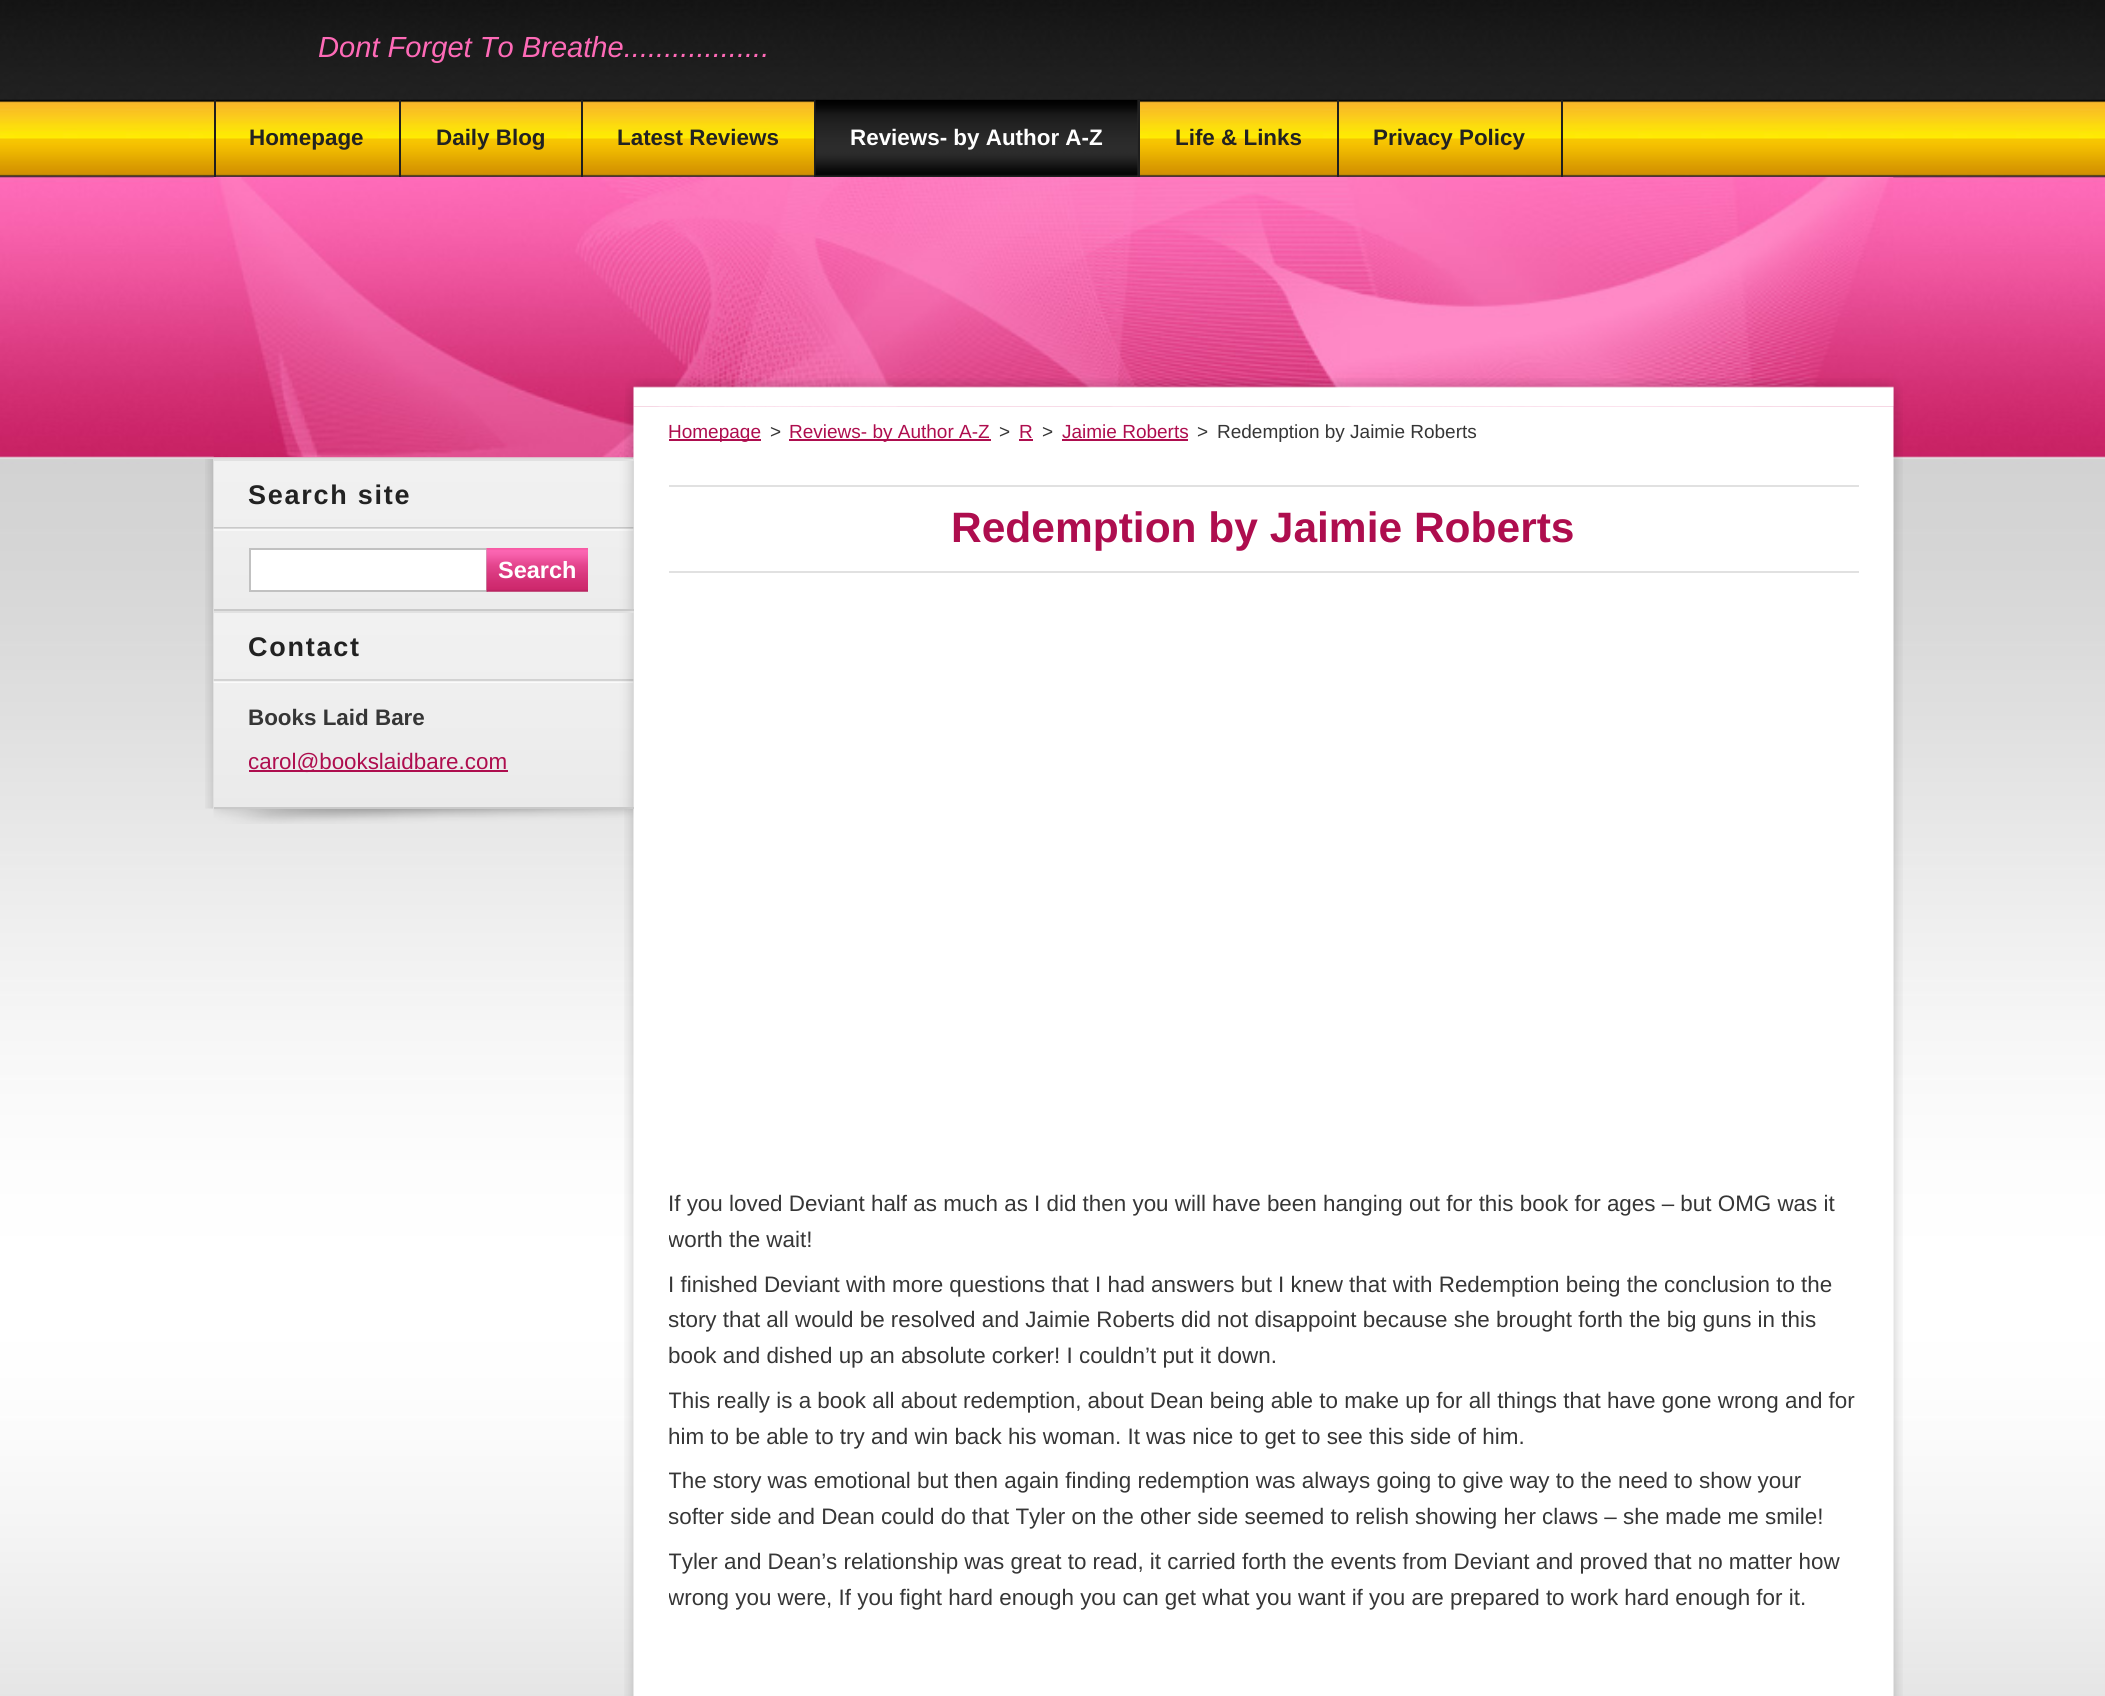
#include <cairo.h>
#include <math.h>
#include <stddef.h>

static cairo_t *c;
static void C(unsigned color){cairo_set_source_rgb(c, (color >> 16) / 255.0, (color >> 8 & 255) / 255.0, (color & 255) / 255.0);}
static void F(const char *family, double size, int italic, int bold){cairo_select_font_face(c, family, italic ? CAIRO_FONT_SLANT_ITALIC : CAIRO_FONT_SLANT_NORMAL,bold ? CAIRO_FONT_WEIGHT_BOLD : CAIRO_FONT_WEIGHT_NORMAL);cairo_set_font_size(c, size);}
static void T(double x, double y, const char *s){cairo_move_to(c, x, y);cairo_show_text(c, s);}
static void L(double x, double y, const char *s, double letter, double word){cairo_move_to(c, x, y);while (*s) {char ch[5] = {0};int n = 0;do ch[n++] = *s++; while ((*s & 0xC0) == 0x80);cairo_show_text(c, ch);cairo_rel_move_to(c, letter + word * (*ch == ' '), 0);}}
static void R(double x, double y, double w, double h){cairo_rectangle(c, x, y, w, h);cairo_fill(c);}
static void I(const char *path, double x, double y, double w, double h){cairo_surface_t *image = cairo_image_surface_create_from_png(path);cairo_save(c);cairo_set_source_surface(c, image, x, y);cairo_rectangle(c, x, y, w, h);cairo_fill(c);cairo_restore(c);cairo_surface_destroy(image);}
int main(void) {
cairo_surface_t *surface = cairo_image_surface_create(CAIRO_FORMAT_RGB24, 2105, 1696);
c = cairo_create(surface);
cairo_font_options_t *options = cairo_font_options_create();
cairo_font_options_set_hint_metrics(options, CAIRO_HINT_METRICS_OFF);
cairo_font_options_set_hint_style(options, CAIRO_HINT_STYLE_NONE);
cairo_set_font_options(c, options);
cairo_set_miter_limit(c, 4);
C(0xffffff);
cairo_paint(c);
I("1.png",0,0,2105,1696);
F("Liberation Sans",29.1,1,0);
C(0xfe6ab7);
T(318,57,"Dont Forget To Breathe..................");
I("2.png",213,177,1681,280);
C(0x1f1f1f);
R(399,100,2,77);
R(214,100,2,77);
F("Liberation Sans",22.4,0,1);
C(0x222222);
T(249,145,"Homepage");
C(0x1f1f1f);
R(581,100,2,77);
C(0x222222);
T(436,145,"Daily Blog");
C(0x1f1f1f);
R(814,100,2,77);
C(0x222222);
T(617,145,"Latest Reviews");
C(0x1f1f1f);
R(1138,100,2,77);
C(0x2b2b2b);
R(1137,100,1,77);
I("3.png",815,100,323,77);
C(0xffffff);
T(850,145,"Reviews- by Author A-Z");
C(0x1f1f1f);
R(1337,100,2,77);
C(0x222222);
T(1175,145,"Life & Links");
C(0x1f1f1f);
R(1561,100,2,77);
C(0x222222);
T(1373,145,"Privacy Policy");
I("4.png",625,378,1278,29);
I("5.png",624,406,1279,1290);
I("6.png",213,809,421,15);
I("7.png",205,459,429,152);
I("8.png",213,459,420,152);
C(0xc9c9c9);
R(214,609,420,2);
I("9.png",213,527,421,4);
C(0xe1e1e1);
R(214,459,420,2);
F("Liberation Sans",27,0,1);
C(0x222222);
L(248,504,"Search site",1.75,0);
C(0xffffff);
cairo_rectangle(c,250,549,237,42);
cairo_fill_preserve(c);
C(0xc1c1c1);
cairo_stroke(c);
I("10.png",486,548,102,44);
F("Liberation Sans",23.5,0,1);
C(0xffffff);
T(498,578,"Search");
I("11.png",205,611,429,198);
I("12.png",213,611,420,198);
C(0xc9c9c9);
R(214,807,420,2);
I("13.png",213,679,421,4);
C(0xe1e1e1);
R(214,611,420,2);
F("Liberation Sans",27,0,1);
C(0x222222);
L(248,656,"Contact",1.75,0);
F("Liberation Sans",22.4,0,1);
C(0x363636);
T(248,725,"Books Laid Bare");
C(0xae0d4e);
R(249,770,259,2);
cairo_save(c);
cairo_rectangle(c,249,683,350,124);
cairo_clip(c);
F("Liberation Sans",22.4,0,0);
T(248,769,"carol@bo");
cairo_restore(c);
F("Liberation Sans",22.4,0,0);
T(344,769,"okslaidbare.com");
R(669,439,92,2);
F("Liberation Sans",19,0,0);
T(668,438,"Homepage");
C(0x363636);
T(770,438,">");
C(0xae0d4e);
R(789,439,202,2);
T(789,438,"Reviews- by Author A-Z");
C(0x363636);
T(999,438,">");
C(0xae0d4e);
T(1019,438,"R");
R(1019,439,14,2);
C(0x363636);
T(1042,438,">");
C(0xae0d4e);
T(1062,438,"Jaimie Roberts");
R(1062,439,126,2);
C(0x363636);
T(1197,438,">");
T(1217,438,"Redemption by Jaimie Roberts");
C(0xe1e1e1);
R(669,485,1190,2);
R(669,571,1190,2);
F("Liberation Sans",42.5,0,1);
C(0xae0d4e);
T(951,542,"Redemption by Jaimie Roberts");
F("Liberation Sans",22.4,0,0);
C(0x363636);
T(668,1211,"If you loved Deviant half as much as I did then you will have been hanging out for this book for ages – but OMG was it");
cairo_save(c);
cairo_rectangle(c,669,485,1190,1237);
cairo_clip(c);
T(668,1247,"worth the wait!");
cairo_restore(c);
T(668,1292,"I finished Deviant with more questions that I had answers but I knew that with Redemption being the conclusion to the");
cairo_save(c);
cairo_rectangle(c,669,485,1190,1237);
cairo_clip(c);
T(668,1327,"story that all would be resolved and Jaimie Roberts did not disappoint because she brought forth the big guns in this");
cairo_restore(c);
T(668,1363,"book and dished up an absolute corker! I couldn’t put it down.");
cairo_save(c);
cairo_rectangle(c,669,485,1190,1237);
cairo_clip(c);
T(668,1408,"This really is a book all about redemption, about Dean being able to make up for all things that have gone wrong and for");
cairo_restore(c);
T(668,1444,"him to be able to try and win back his woman. It was nice to get to see this side of him.");
cairo_save(c);
cairo_rectangle(c,669,485,1190,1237);
cairo_clip(c);
T(668,1488,"The story was emotional but then again finding redemption was always going to give way to the need to show your");
T(668,1524,"softer side and Dean could do that Tyler on the other side seemed to relish showing her claws – she made me smile!");
T(668,1569,"Tyler and Dean’s relationship was great to read, it carried forth the events from Deviant and proved that no matter how");
T(668,1605,"wrong you were, If you fight hard enough you can get what you want if you are prepared to work hard enough for it.");
cairo_restore(c);
cairo_surface_write_to_png(surface, "o.png");
cairo_font_options_destroy(options);
cairo_destroy(c);
cairo_surface_destroy(surface);
return 0;
}
